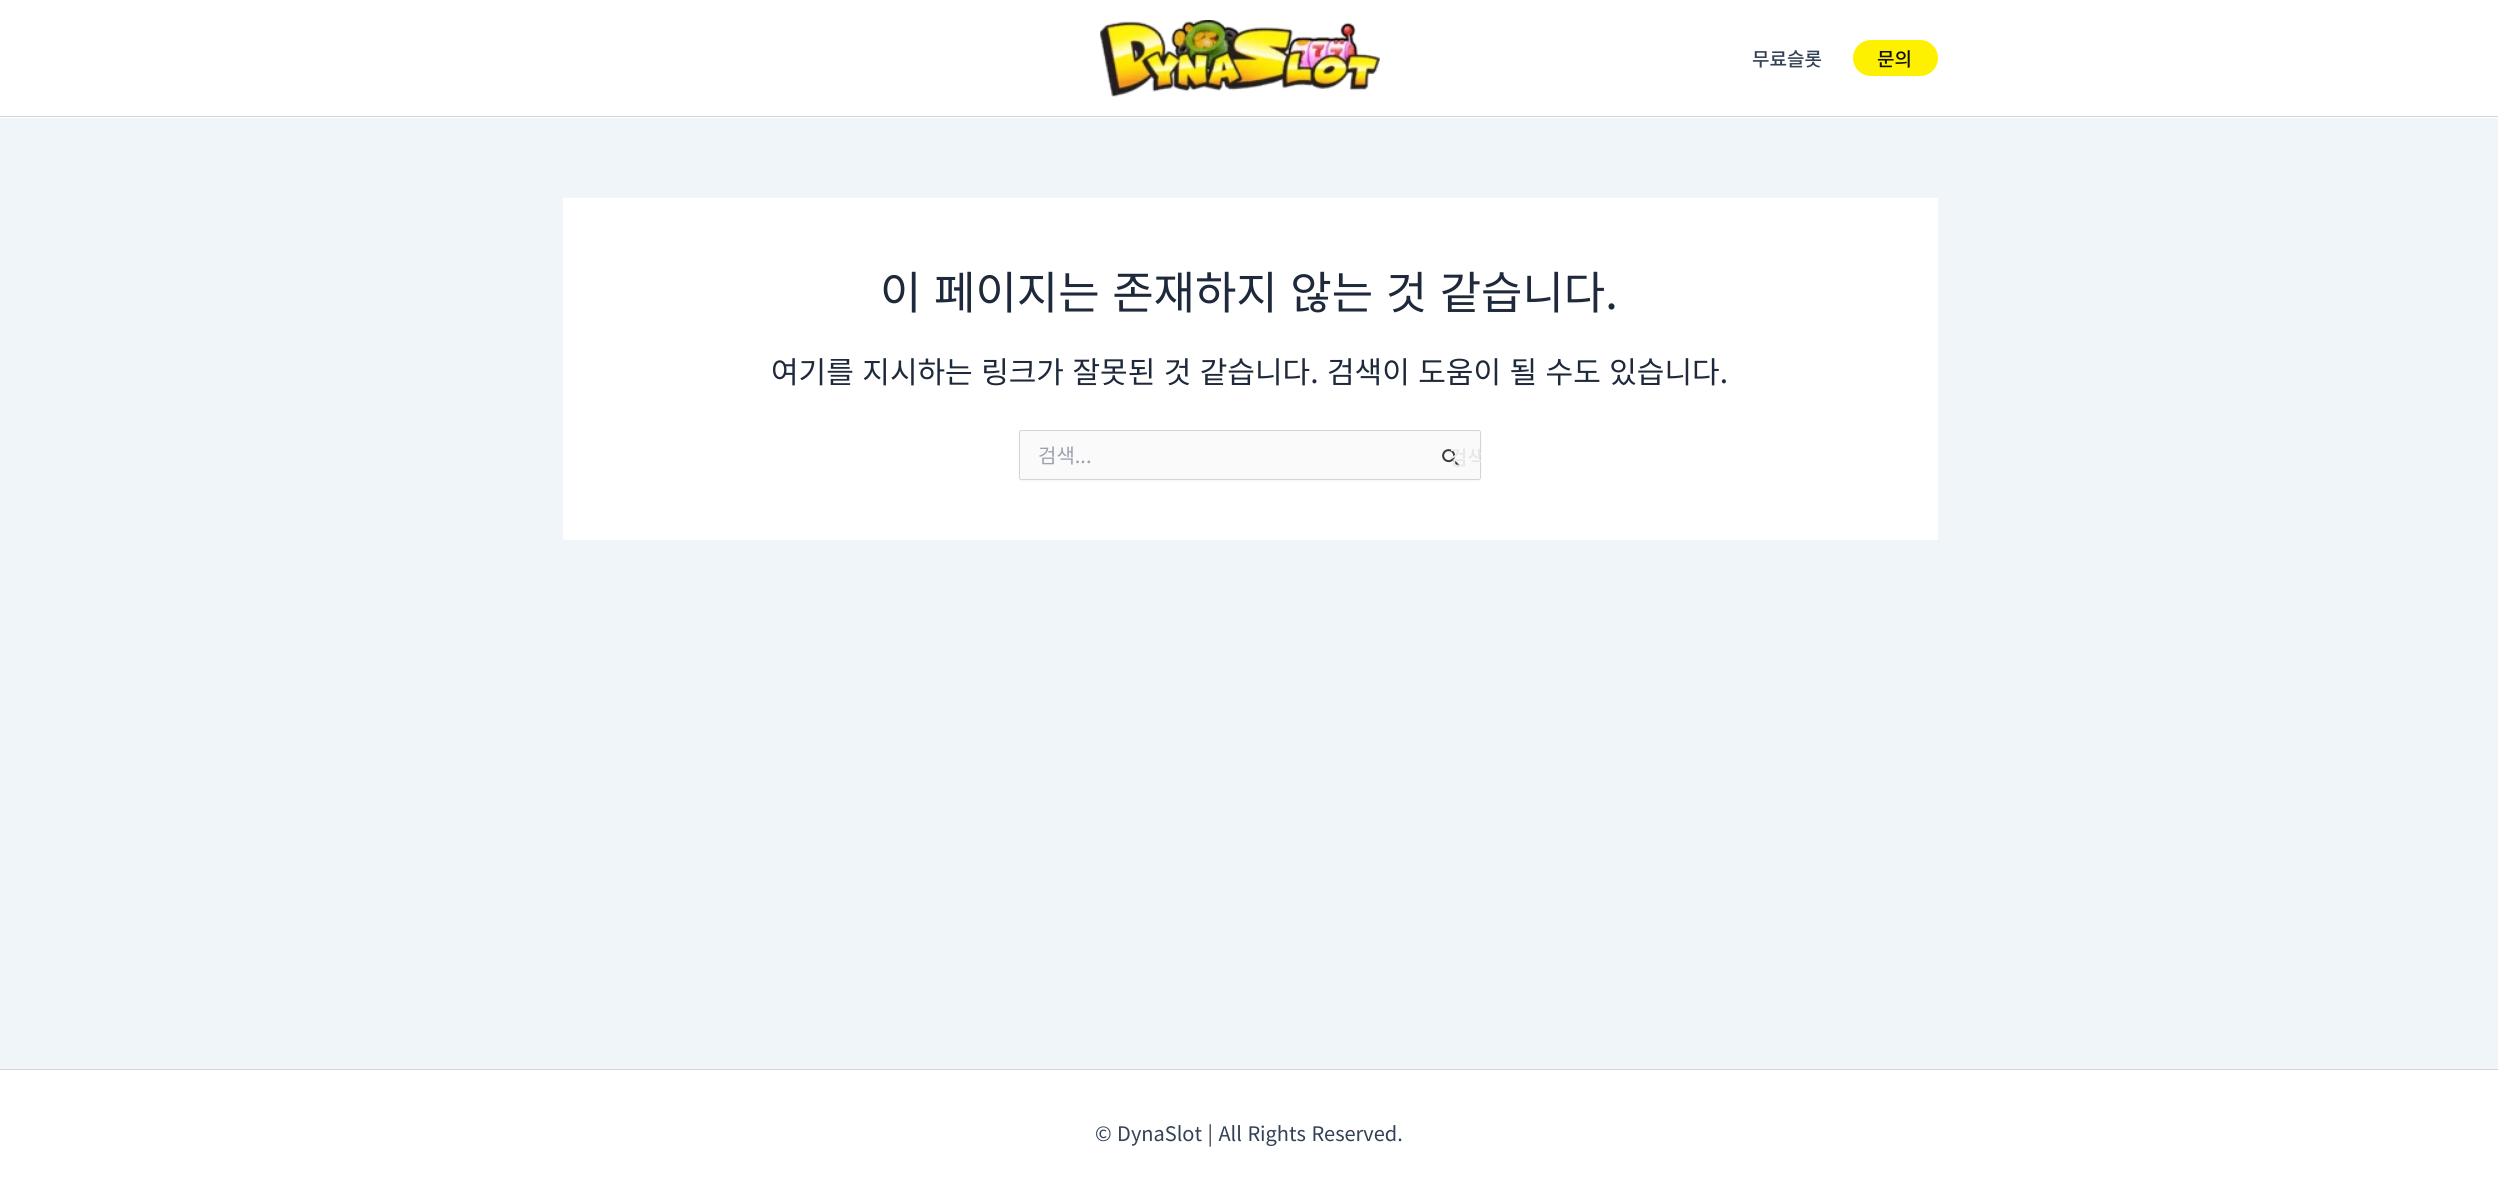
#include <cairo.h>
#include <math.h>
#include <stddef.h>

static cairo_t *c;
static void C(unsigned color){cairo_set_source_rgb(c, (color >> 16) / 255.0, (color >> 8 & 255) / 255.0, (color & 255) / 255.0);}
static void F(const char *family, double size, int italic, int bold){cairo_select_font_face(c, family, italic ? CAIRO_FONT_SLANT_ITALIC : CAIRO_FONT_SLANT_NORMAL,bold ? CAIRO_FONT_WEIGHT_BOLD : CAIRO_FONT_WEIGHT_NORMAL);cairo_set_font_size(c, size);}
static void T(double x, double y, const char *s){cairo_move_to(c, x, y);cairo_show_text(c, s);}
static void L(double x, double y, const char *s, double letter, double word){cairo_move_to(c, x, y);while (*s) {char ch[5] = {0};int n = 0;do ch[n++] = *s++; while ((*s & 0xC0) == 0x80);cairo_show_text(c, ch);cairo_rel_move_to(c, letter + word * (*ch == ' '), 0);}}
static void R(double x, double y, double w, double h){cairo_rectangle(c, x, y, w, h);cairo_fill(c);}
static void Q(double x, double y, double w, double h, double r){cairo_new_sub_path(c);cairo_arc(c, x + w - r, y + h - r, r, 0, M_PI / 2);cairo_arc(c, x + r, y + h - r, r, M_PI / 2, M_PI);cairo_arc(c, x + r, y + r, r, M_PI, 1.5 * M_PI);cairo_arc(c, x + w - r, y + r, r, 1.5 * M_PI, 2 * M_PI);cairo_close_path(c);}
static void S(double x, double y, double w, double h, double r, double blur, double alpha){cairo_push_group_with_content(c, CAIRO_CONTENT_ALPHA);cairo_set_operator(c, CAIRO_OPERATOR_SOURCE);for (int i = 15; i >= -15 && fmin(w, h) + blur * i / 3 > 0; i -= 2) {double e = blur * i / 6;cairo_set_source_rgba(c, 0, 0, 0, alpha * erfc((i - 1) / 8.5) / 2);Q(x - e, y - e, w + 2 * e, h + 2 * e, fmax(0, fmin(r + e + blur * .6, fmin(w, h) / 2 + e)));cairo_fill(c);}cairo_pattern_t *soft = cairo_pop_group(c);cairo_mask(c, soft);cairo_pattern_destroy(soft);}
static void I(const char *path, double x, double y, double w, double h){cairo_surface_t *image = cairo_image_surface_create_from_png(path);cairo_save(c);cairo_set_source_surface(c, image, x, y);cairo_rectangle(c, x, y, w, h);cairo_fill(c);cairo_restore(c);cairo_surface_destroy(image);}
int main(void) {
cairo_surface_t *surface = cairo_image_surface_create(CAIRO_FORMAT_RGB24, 2498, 1194);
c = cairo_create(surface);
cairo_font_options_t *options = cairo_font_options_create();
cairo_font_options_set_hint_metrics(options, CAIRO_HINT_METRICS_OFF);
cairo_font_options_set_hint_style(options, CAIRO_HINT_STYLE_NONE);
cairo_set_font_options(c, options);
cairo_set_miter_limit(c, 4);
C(0xf0f5fa);
cairo_paint(c);
C(0xffffff);
R(0,0,2498,118);
C(0xd1d5db);
R(0,116,2498,1);
I("1.png",1100,20,280,77);
F("Noto Sans KR Medium",19,0,0);
C(0x334155);
T(1752,66,"무료슬롯");
C(0xfef100);
Q(1853,40,85,36,18);
cairo_fill(c);
C(0x111111);
T(1877,66,"문의");
C(0xffffff);
R(563,198,1375,342);
F("Noto Sans KR",45,0,0);
C(0x1e293b);
L(880,309,"이 페이지는 존재하지 않는 것 같습니다.",0,2.5);
F("Noto Sans KR",30,0,0);
L(771,383,"여기를 지시하는 링크가 잘못된 것 같습니다. 검색이 도움이 될 수도 있습니다.",0,1.75);
C(0x000000);
S(1019,431,462,50,2.5,1,.05);
C(0xfafafa);
Q(1019.5,430.5,461,49,2);
cairo_fill_preserve(c);
C(0xd1d5db);
cairo_set_line_width(c,1);
cairo_stroke(c);
F("Noto Sans KR",20,0,0);
C(0x9ca3af);
T(1038,463,"검색...");
I("2.png",1442,449,18,18);
cairo_save(c);
Q(1425,430,56,53,2.5);
cairo_clip(c);
F("Noto Sans KR Medium",20,0,0);
C(0xe7e7e7);
T(1449,465,"검색");
cairo_restore(c);
C(0xffffff);
R(0,1070,2498,124);
C(0xd1d5db);
R(0,1069,2498,1);
C(0x334155);
L(1095,1141,"© DynaSlot | All Rights Reserved.",0,1);
cairo_surface_write_to_png(surface, "o.png");
cairo_font_options_destroy(options);
cairo_destroy(c);
cairo_surface_destroy(surface);
return 0;
}
